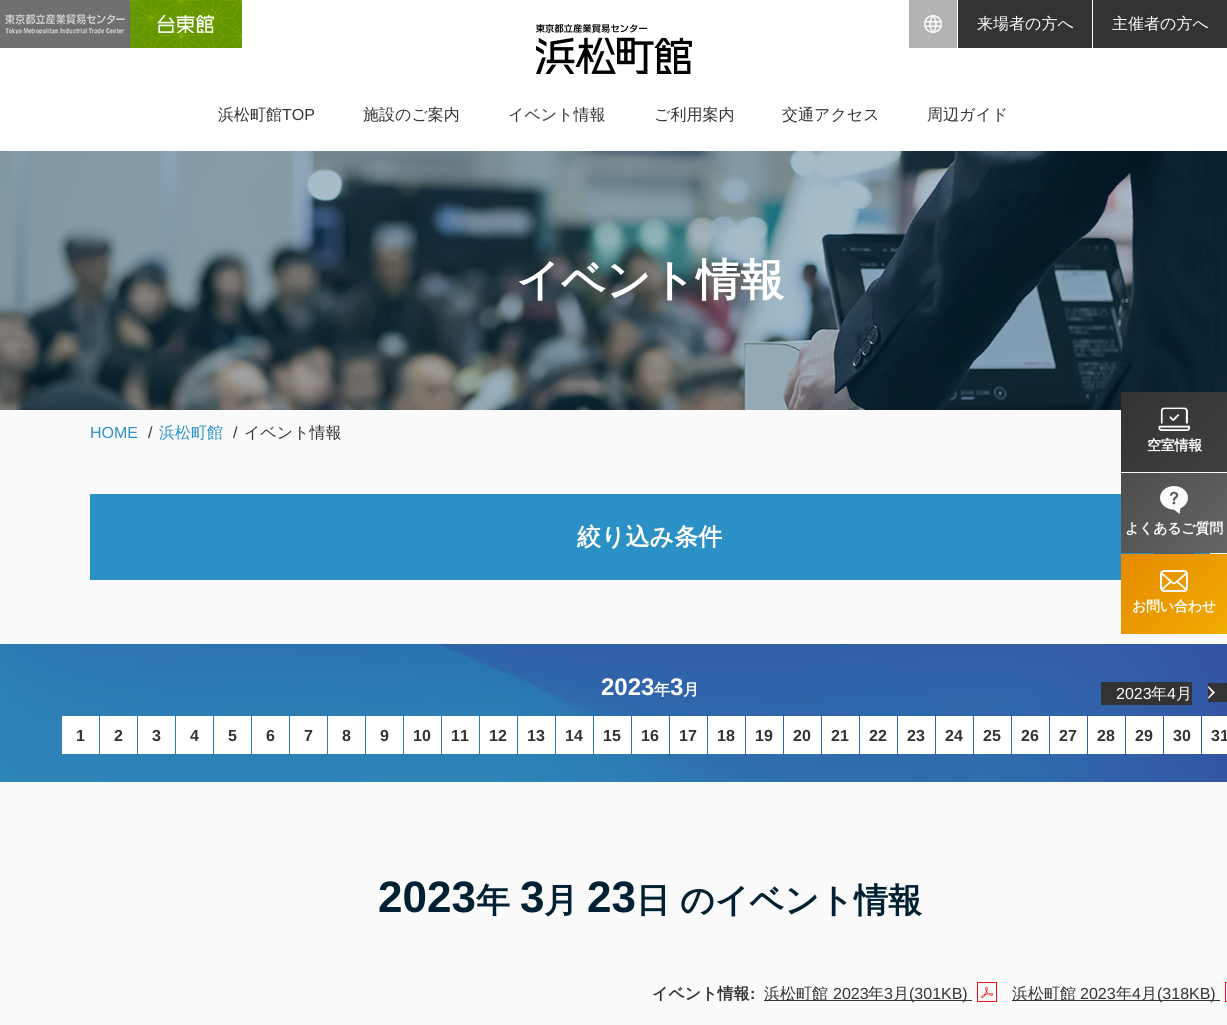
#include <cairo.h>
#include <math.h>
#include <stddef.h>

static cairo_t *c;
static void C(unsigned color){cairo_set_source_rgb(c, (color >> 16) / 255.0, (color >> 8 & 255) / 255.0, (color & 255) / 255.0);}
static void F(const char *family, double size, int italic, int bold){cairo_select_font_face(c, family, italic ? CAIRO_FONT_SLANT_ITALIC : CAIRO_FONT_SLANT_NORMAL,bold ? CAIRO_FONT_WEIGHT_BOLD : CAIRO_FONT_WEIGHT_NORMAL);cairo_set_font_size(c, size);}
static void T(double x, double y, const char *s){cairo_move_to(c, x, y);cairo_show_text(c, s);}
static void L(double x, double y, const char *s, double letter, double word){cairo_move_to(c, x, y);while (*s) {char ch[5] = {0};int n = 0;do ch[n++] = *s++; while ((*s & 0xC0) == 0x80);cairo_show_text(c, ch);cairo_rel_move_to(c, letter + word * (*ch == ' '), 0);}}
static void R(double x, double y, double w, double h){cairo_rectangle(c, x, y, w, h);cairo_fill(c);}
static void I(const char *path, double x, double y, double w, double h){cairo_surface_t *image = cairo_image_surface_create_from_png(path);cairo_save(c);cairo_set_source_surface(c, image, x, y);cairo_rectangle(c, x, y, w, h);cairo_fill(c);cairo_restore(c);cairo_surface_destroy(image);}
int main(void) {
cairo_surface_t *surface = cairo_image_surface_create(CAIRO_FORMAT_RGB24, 1227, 1025);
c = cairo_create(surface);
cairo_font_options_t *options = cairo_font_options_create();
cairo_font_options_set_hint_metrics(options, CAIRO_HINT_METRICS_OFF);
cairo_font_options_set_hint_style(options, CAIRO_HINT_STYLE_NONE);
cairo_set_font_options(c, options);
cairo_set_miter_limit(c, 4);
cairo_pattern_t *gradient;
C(0xfafafa);
cairo_paint(c);
C(0xffffff);
R(0,0,1227,151);
I("1.png",536,24,156,50);
C(0x707070);
R(0,0,130,48);
I("2.png",5,14,120,20);
I("3.png",130,0,112,48);
I("4.png",157,15,57,18);
C(0xb3b3b3);
R(909,0,48,48);
I("5.png",924,15,18,18);
C(0x333333);
R(958,0,134,48);
F("WenQuanYi Zen Hei Medium",16,0,0);
C(0xffffff);
T(977,29,"来場者の方へ");
C(0x333333);
R(1093,0,134,48);
C(0xffffff);
T(1112,29,"主催者の方へ");
C(0x333333);
T(218,120,"浜松町館");
F("Liberation Sans",16,0,0);
T(282,120,"TOP");
F("WenQuanYi Zen Hei Medium",16,0,0);
T(363,120,"施設のご案内");
T(508,120,"イベント情報");
T(654,120,"ご利用案内");
T(782,120,"交通アクセス");
T(927,120,"周辺ガイド");
I("6.png",0,151,1227,259);
F("WenQuanYi Zen Hei",44,0,1);
C(0xffffff);
T(516,295,"イベント情報");
F("Liberation Sans",16,0,0);
C(0x2b90c5);
T(90,438,"HOME");
C(0x333333);
T(148,438,"/");
F("WenQuanYi Zen Hei Medium",16,0,0);
C(0x2b90c5);
T(159,438,"浜松町館");
F("Liberation Sans",16,0,0);
C(0x333333);
T(233,438,"/");
F("WenQuanYi Zen Hei Medium",16,0,0);
T(244,438,"イベント情報");
C(0x2b90c5);
R(90,494,1120,86);
F("WenQuanYi Zen Hei",24,0,1);
C(0xffffff);
T(577,545,"絞り込み条件");
C(0x37657d);
R(1154,553,40,1);
I("7.png",0,644,1227,138);
F("Liberation Sans",24,0,1);
C(0xffffff);
T(601,695,"2023");
F("WenQuanYi Zen Hei",16,0,1);
T(654,695,"年");
F("Liberation Sans",24,0,1);
T(670,695,"3");
F("WenQuanYi Zen Hei",16,0,1);
T(683,695,"月");
C(0x333333);
R(1101,682,91,23);
R(1208,683,19,19);
F("Liberation Sans",16,0,0);
C(0xffffff);
T(1116,699,"2023");
F("WenQuanYi Zen Hei Medium",16,0,0);
T(1151,699,"年");
F("Liberation Sans",16,0,0);
T(1167,699,"4");
F("WenQuanYi Zen Hei Medium",16,0,0);
T(1176,699,"月");
I("8.png",1208,686,7,13);
R(62,716,37,38);
F("Liberation Sans",16,0,1);
C(0x333333);
T(76,741,"1");
C(0xffffff);
R(100,716,37,38);
C(0x333333);
T(114,741,"2");
C(0xffffff);
R(138,716,37,38);
C(0x333333);
T(152,741,"3");
C(0xffffff);
R(176,716,37,38);
C(0x333333);
T(190,741,"4");
C(0xffffff);
R(214,716,37,38);
C(0x333333);
T(228,741,"5");
C(0xffffff);
R(252,716,37,38);
C(0x333333);
T(266,741,"6");
C(0xffffff);
R(290,716,37,38);
C(0x333333);
T(304,741,"7");
C(0xffffff);
R(328,716,37,38);
C(0x333333);
T(342,741,"8");
C(0xffffff);
R(366,716,37,38);
C(0x333333);
T(380,741,"9");
C(0xffffff);
R(404,716,37,38);
C(0x333333);
T(413,741,"10");
C(0xffffff);
R(442,716,37,38);
C(0x333333);
T(451,741,"11");
C(0xffffff);
R(480,716,37,38);
C(0x333333);
T(489,741,"12");
C(0xffffff);
R(518,716,37,38);
C(0x333333);
T(527,741,"13");
C(0xffffff);
R(556,716,37,38);
C(0x333333);
T(565,741,"14");
C(0xffffff);
R(594,716,37,38);
C(0x333333);
T(603,741,"15");
C(0xffffff);
R(632,716,37,38);
C(0x333333);
T(641,741,"16");
C(0xffffff);
R(670,716,37,38);
C(0x333333);
T(679,741,"17");
C(0xffffff);
R(708,716,37,38);
C(0x333333);
T(717,741,"18");
C(0xffffff);
R(746,716,37,38);
C(0x333333);
T(755,741,"19");
C(0xffffff);
R(784,716,37,38);
C(0x333333);
T(793,741,"20");
C(0xffffff);
R(822,716,37,38);
C(0x333333);
T(831,741,"21");
C(0xffffff);
R(860,716,37,38);
C(0x333333);
T(869,741,"22");
C(0xffffff);
R(898,716,37,38);
C(0x333333);
T(907,741,"23");
C(0xffffff);
R(936,716,37,38);
C(0x333333);
T(945,741,"24");
C(0xffffff);
R(974,716,37,38);
C(0x333333);
T(983,741,"25");
C(0xffffff);
R(1012,716,37,38);
C(0x333333);
T(1021,741,"26");
C(0xffffff);
R(1050,716,37,38);
C(0x333333);
T(1059,741,"27");
C(0xffffff);
R(1088,716,37,38);
C(0x333333);
T(1097,741,"28");
C(0xffffff);
R(1126,716,37,38);
C(0x333333);
T(1135,741,"29");
C(0xffffff);
R(1164,716,37,38);
C(0x333333);
T(1173,741,"30");
C(0xffffff);
R(1202,716,25,38);
C(0x333333);
T(1211,741,"31");
F("Liberation Sans",44,0,1);
C(0x002133);
T(378,912,"2023");
F("WenQuanYi Zen Hei",34,0,1);
T(476,912,"年");
F("Liberation Sans",44,0,1);
T(520,912,"3");
F("WenQuanYi Zen Hei",34,0,1);
T(544,912,"月");
F("Liberation Sans",44,0,1);
T(587,912,"23");
F("WenQuanYi Zen Hei",34,0,1);
T(636,912,"日");
T(680,912,"のイベント情報");
F("WenQuanYi Zen Hei",16,0,1);
C(0x333333);
T(652,999,"イベント情報");
F("Liberation Sans",16,0,1);
T(750,999,":");
R(764,1000,208,1);
F("WenQuanYi Zen Hei Medium",16,0,0);
T(764,999,"浜松町館");
F("Liberation Sans",16,0,0);
T(833,999,"2023");
F("WenQuanYi Zen Hei Medium",16,0,0);
T(868,999,"年");
F("Liberation Sans",16,0,0);
T(884,999,"3");
F("WenQuanYi Zen Hei Medium",16,0,0);
T(893,999,"月");
F("Liberation Sans",16,0,0);
T(909,999,"(301KB)");
I("9.png",977,982,20,20);
R(1012,1000,208,1);
F("WenQuanYi Zen Hei Medium",16,0,0);
T(1012,999,"浜松町館");
F("Liberation Sans",16,0,0);
T(1080,999,"2023");
F("WenQuanYi Zen Hei Medium",16,0,0);
T(1116,999,"年");
F("Liberation Sans",16,0,0);
T(1132,999,"4");
F("WenQuanYi Zen Hei Medium",16,0,0);
T(1141,999,"月");
F("Liberation Sans",16,0,0);
T(1157,999,"(318KB)");
I("10.png",1225,982,2,20);
gradient = cairo_pattern_create_linear(1128,386,1221,479);
cairo_pattern_add_color_stop_rgba(gradient,0,0.2,0.2,0.2,1);
cairo_pattern_add_color_stop_rgba(gradient,1,0.251,0.251,0.251,1);
cairo_set_source(c,gradient);
cairo_pattern_destroy(gradient);
R(1121,392,106,80);
I("11.png",1158,407,32,24);
F("WenQuanYi Zen Hei",14,0,1);
C(0xffffff);
L(1147,450,"空室情報",-.25,0);
gradient = cairo_pattern_create_linear(1128,467,1221,560);
cairo_pattern_add_color_stop_rgba(gradient,0,0.302,0.302,0.302,1);
cairo_pattern_add_color_stop_rgba(gradient,1,0.4,0.4,0.4,1);
cairo_set_source(c,gradient);
cairo_pattern_destroy(gradient);
R(1121,473,106,80);
I("12.png",1160,486,28,28);
C(0xffffff);
L(1125,533,"よくあるご質問",-.25,0);
gradient = cairo_pattern_create_linear(1128,548,1221,641);
cairo_pattern_add_color_stop_rgba(gradient,0,0.898,0.541,0,1);
cairo_pattern_add_color_stop_rgba(gradient,1,0.941,0.675,0.008,1);
cairo_set_source(c,gradient);
cairo_pattern_destroy(gradient);
R(1121,554,106,80);
I("13.png",1160,570,28,22);
C(0xffffff);
L(1132,611,"お問い合わせ",-.25,0);
cairo_surface_write_to_png(surface, "o.png");
cairo_font_options_destroy(options);
cairo_destroy(c);
cairo_surface_destroy(surface);
return 0;
}
